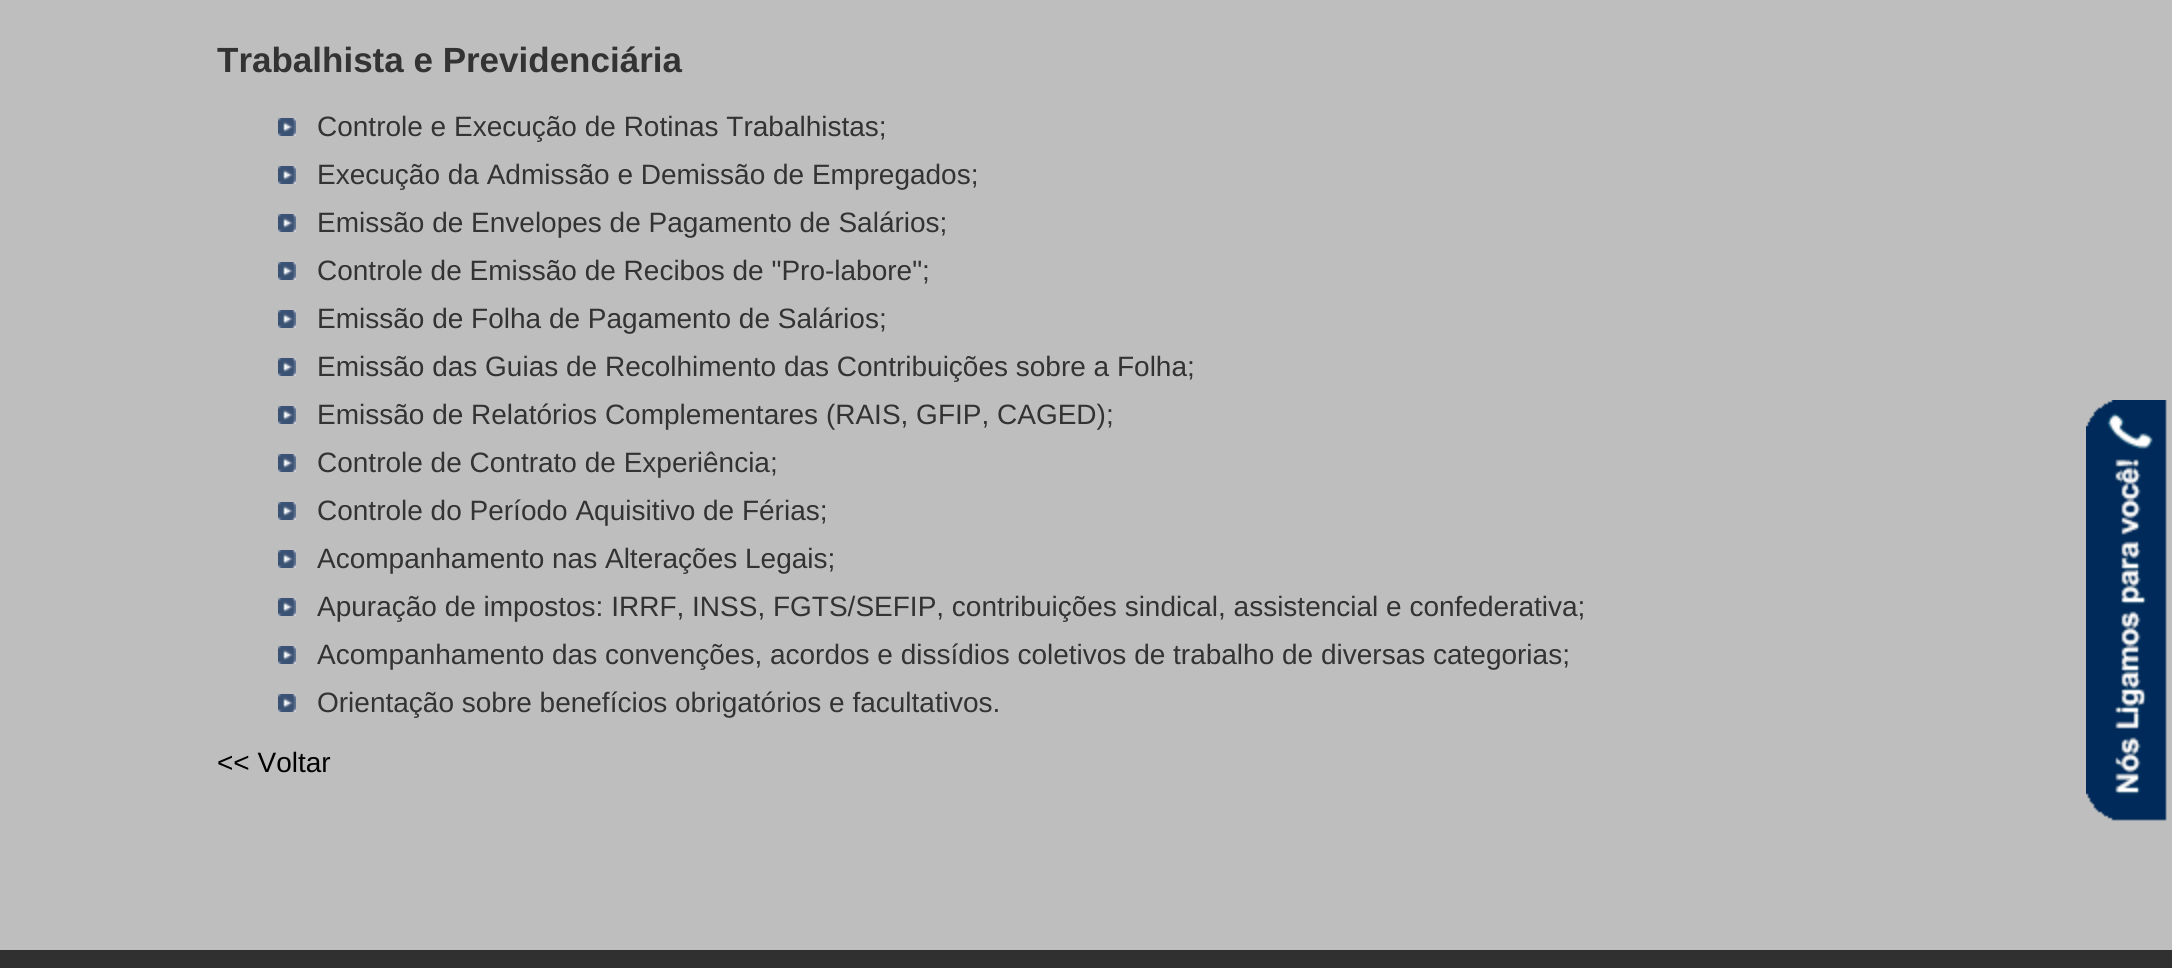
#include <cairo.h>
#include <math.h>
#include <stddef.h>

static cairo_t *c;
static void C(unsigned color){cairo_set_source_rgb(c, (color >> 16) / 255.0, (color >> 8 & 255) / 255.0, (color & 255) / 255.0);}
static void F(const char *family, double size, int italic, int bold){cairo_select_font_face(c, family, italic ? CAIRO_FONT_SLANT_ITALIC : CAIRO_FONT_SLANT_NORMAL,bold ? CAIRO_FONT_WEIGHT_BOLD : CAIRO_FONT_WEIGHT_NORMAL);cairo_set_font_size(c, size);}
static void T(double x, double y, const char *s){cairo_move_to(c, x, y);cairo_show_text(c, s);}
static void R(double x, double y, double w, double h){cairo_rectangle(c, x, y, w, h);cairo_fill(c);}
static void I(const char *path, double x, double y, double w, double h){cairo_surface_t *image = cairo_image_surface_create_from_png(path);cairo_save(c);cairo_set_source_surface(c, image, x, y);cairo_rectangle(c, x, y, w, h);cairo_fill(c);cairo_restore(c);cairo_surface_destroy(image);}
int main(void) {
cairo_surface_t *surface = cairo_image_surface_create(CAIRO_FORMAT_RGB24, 2172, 968);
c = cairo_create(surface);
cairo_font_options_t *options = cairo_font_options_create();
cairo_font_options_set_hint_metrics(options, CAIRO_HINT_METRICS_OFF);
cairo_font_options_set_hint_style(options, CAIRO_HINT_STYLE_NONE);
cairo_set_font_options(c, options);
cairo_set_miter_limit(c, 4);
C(0x303030);
cairo_paint(c);
C(0xbebebe);
R(0,0,2172,950);
F("Liberation Sans",35,0,1);
C(0x333333);
T(217,72,"Trabalhista e Previdenciária");
I("1.png",278,118,18,18);
F("Liberation Sans",28,0,0);
T(317,136,"Controle e Execução de Rotinas Trabalhistas;");
I("1.png",278,166,18,18);
T(317,184,"Execução da Admissão e Demissão de Empregados;");
I("1.png",278,214,18,18);
T(317,232,"Emissão de Envelopes de Pagamento de Salários;");
I("1.png",278,262,18,18);
T(317,280,"Controle de Emissão de Recibos de \"Pro-labore\";");
I("1.png",278,310,18,18);
T(317,328,"Emissão de Folha de Pagamento de Salários;");
I("1.png",278,358,18,18);
T(317,376,"Emissão das Guias de Recolhimento das Contribuições sobre a Folha;");
I("1.png",278,406,18,18);
T(317,424,"Emissão de Relatórios Complementares (RAIS, GFIP, CAGED);");
I("1.png",278,454,18,18);
T(317,472,"Controle de Contrato de Experiência;");
I("1.png",278,502,18,18);
T(317,520,"Controle do Período Aquisitivo de Férias;");
I("1.png",278,550,18,18);
T(317,568,"Acompanhamento nas Alterações Legais;");
I("1.png",278,598,18,18);
T(317,616,"Apuração de impostos: IRRF, INSS, FGTS/SEFIP, contribuições sindical, assistencial e confederativa;");
I("1.png",278,646,18,18);
T(317,664,"Acompanhamento das convenções, acordos e dissídios coletivos de trabalho de diversas categorias;");
I("1.png",278,694,18,18);
T(317,712,"Orientação sobre benefícios obrigatórios e facultativos.");
C(0x000000);
T(217,772,"<< Voltar");
I("2.png",2086,400,81,421);
cairo_surface_write_to_png(surface, "o.png");
cairo_font_options_destroy(options);
cairo_destroy(c);
cairo_surface_destroy(surface);
return 0;
}
